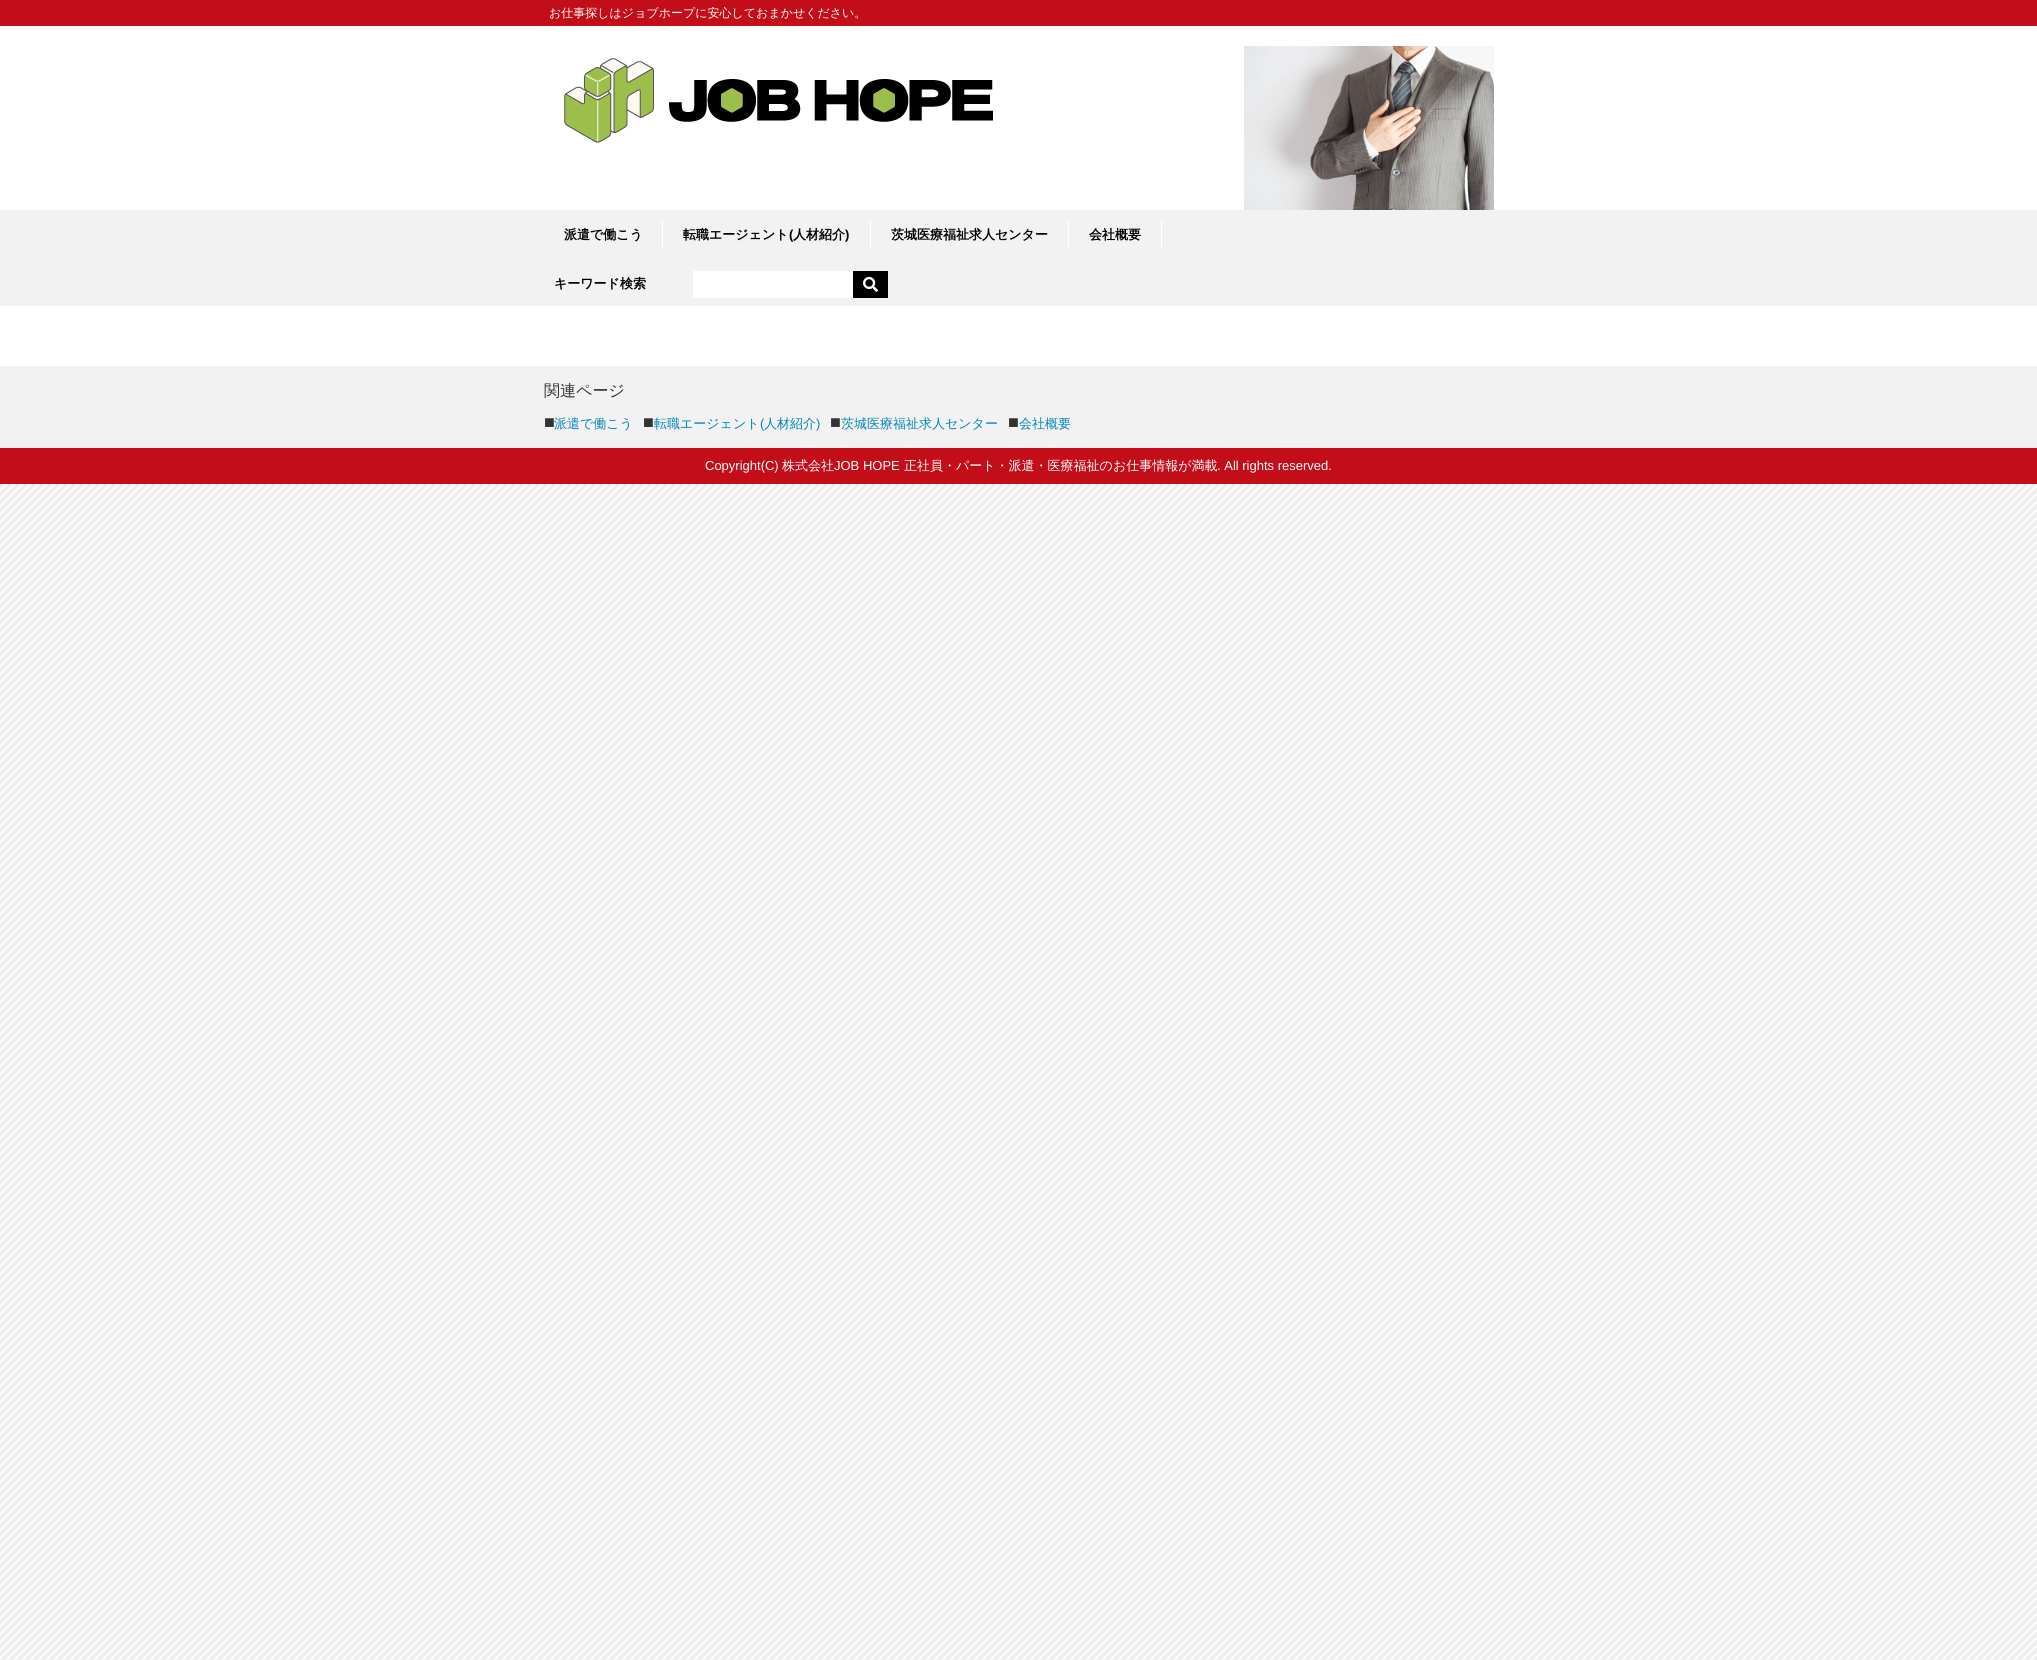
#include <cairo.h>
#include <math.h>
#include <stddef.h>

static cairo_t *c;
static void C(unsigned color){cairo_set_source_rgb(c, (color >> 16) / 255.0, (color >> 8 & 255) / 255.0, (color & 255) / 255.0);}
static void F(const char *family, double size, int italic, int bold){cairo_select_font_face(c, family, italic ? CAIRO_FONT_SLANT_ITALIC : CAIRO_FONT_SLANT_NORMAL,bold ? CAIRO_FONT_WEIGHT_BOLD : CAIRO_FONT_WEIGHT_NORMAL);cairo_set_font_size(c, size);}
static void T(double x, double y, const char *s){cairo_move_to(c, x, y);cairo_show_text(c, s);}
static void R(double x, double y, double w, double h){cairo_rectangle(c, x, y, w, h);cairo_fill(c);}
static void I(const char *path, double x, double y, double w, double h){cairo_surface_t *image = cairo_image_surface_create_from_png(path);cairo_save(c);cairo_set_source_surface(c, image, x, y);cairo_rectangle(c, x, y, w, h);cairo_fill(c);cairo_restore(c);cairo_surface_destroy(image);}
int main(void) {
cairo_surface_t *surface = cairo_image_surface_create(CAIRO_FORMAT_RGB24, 2037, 1660);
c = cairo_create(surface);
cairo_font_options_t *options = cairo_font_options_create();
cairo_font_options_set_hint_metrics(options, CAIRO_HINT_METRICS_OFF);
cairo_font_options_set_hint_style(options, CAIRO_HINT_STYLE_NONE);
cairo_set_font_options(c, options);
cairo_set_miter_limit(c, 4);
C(0xffffff);
cairo_paint(c);
I("1.png",0,484,2037,1176);
C(0xc30d19);
R(0,0,2037,26);
F("WenQuanYi Zen Hei Medium",12,0,0);
C(0xffffff);
T(549,17,"お仕事探しはジョブホープに安心しておまかせください。");
I("2.png",564,58,429,85);
I("3.png",1244,46,250,164);
C(0xf2f2f2);
R(0,210,2037,96);
C(0xffffff);
R(662,220,1,30);
F("WenQuanYi Zen Hei",13,0,1);
C(0x000000);
T(564,239,"派遣で働こう");
C(0xffffff);
R(870,220,1,30);
C(0x000000);
T(683,239,"転職エージェント");
F("Liberation Sans",13,0,1);
T(789,239,"(");
F("WenQuanYi Zen Hei",13,0,1);
T(793,239,"人材紹介");
F("Liberation Sans",13,0,1);
T(845,239,")");
C(0xffffff);
R(1068,220,1,30);
F("WenQuanYi Zen Hei",13,0,1);
C(0x000000);
T(891,239,"茨城医療福祉求人センター");
C(0xffffff);
R(1161,220,1,30);
C(0x000000);
T(1089,239,"会社概要");
T(554,288,"キーワード検索");
C(0xffffff);
R(693,271,160,27);
C(0x000000);
R(853,271,35,27);
I("4.png",863,276,15,16);
C(0xf2f2f2);
R(0,366,2037,82);
F("WenQuanYi Zen Hei Medium",16,0,0);
C(0x333333);
T(544,396,"関連ページ");
F("Liberation Sans",18,0,0);
T(544,428,"■");
F("WenQuanYi Zen Hei Medium",13,0,0);
C(0x0085bb);
T(554,428,"派遣で働こう");
F("Liberation Sans",18,0,0);
C(0x333333);
T(643,428,"■");
F("WenQuanYi Zen Hei Medium",13,0,0);
C(0x0085bb);
T(654,428,"転職エージェント");
F("Liberation Sans",13,0,0);
T(760,428,"(");
F("WenQuanYi Zen Hei Medium",13,0,0);
T(764,428,"人材紹介");
F("Liberation Sans",13,0,0);
T(816,428,")");
F("Liberation Sans",18,0,0);
C(0x333333);
T(830,428,"■");
F("WenQuanYi Zen Hei Medium",13,0,0);
C(0x0085bb);
T(841,428,"茨城医療福祉求人センター");
F("Liberation Sans",18,0,0);
C(0x333333);
T(1008,428,"■");
F("WenQuanYi Zen Hei Medium",13,0,0);
C(0x0085bb);
T(1019,428,"会社概要");
C(0xc30d19);
R(0,448,2037,36);
F("Liberation Sans",13,0,0);
C(0xffffff);
T(705,470,"Copyright(C)");
F("WenQuanYi Zen Hei Medium",13,0,0);
T(782,470,"株式会社");
F("Liberation Sans",13,0,0);
T(834,470,"JOB HOPE");
F("WenQuanYi Zen Hei Medium",13,0,0);
T(904,470,"正社員・パート・派遣・医療福祉のお仕事情報が満載");
F("Liberation Sans",13,0,0);
T(1217,470,". All rights reserved.");
cairo_surface_write_to_png(surface, "o.png");
cairo_font_options_destroy(options);
cairo_destroy(c);
cairo_surface_destroy(surface);
return 0;
}
